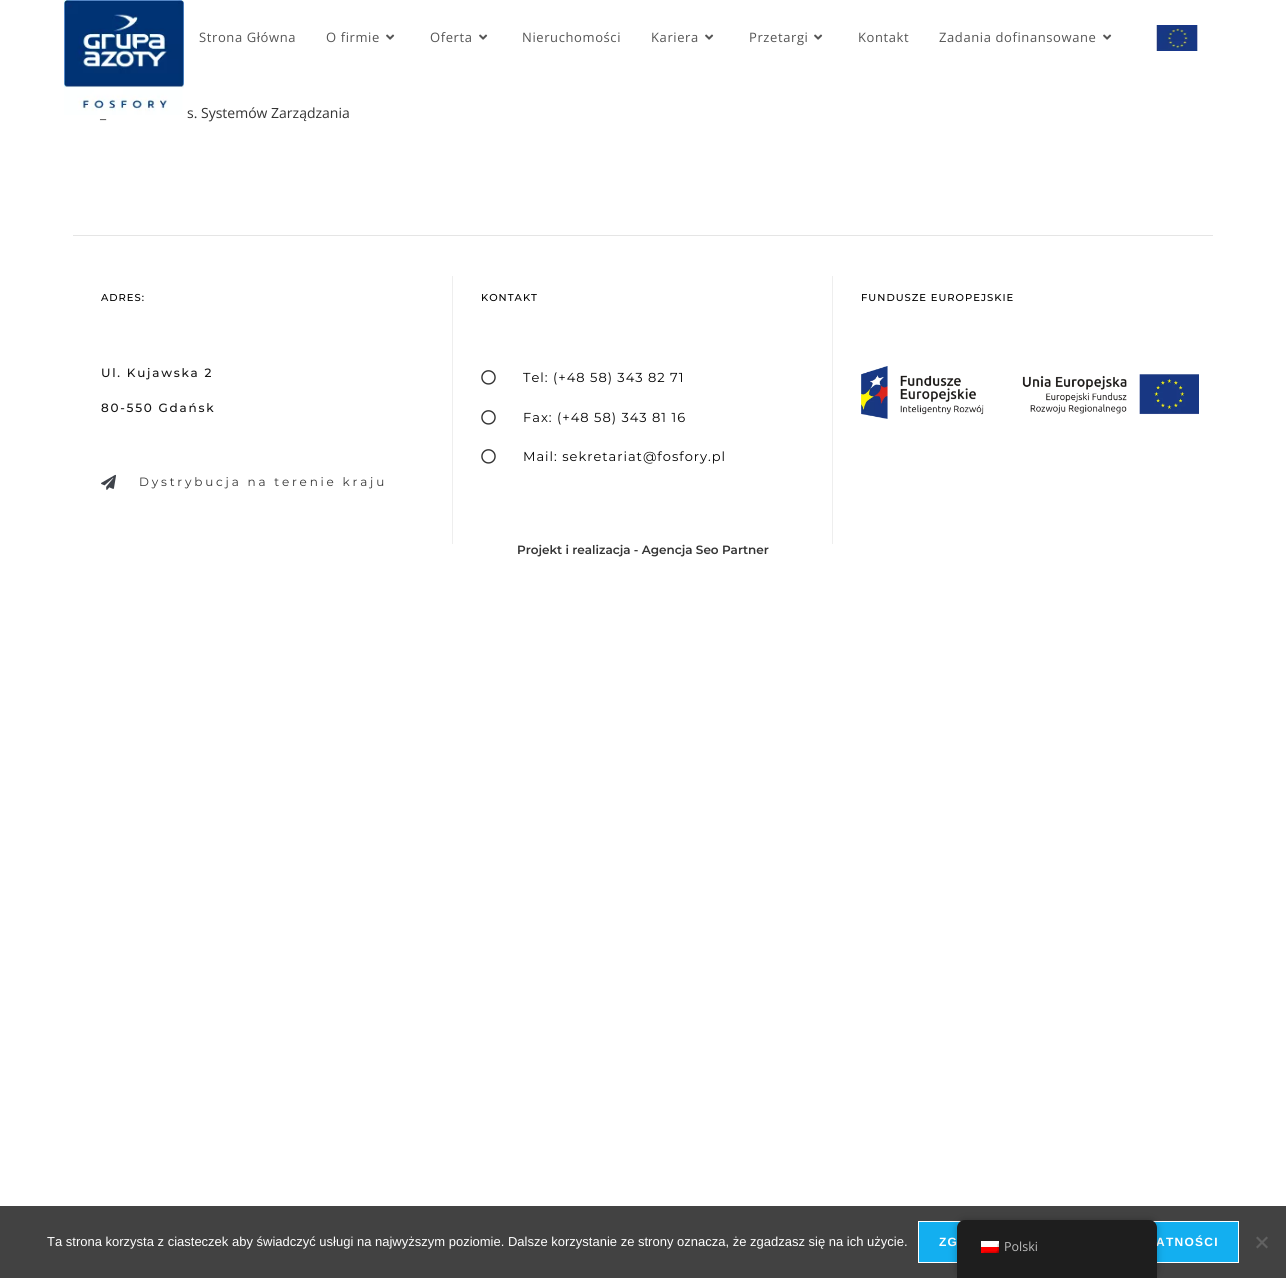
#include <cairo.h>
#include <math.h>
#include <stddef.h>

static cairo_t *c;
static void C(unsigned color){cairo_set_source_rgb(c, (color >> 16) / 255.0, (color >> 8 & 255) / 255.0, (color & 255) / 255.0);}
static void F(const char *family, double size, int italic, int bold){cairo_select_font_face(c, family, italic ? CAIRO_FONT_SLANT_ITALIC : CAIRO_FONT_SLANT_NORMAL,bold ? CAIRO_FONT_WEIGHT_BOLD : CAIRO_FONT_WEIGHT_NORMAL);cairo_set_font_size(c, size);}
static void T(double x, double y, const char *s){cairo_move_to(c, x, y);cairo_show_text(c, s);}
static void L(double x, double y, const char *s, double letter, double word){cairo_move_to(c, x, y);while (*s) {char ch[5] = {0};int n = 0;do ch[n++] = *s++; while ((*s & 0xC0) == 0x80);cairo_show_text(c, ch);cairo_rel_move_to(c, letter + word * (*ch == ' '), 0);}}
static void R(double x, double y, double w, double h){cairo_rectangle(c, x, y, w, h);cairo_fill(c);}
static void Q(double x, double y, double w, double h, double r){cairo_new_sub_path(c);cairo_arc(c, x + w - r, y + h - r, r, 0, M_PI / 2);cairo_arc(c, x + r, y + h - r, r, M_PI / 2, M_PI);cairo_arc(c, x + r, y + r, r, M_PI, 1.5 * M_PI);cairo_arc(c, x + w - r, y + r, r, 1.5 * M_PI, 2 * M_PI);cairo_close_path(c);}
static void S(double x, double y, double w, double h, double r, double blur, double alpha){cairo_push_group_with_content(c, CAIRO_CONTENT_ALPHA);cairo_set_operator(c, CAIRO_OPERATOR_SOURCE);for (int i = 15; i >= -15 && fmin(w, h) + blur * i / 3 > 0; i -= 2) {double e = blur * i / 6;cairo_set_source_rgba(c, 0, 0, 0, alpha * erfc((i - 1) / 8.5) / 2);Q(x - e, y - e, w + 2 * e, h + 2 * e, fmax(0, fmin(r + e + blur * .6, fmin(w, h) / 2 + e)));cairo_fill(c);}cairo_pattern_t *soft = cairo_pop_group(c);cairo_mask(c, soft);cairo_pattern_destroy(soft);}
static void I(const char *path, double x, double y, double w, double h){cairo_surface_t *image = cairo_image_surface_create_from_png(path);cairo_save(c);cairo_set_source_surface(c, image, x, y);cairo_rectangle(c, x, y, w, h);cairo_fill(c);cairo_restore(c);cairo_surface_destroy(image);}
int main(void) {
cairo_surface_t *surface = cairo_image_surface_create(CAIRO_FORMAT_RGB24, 1286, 1278);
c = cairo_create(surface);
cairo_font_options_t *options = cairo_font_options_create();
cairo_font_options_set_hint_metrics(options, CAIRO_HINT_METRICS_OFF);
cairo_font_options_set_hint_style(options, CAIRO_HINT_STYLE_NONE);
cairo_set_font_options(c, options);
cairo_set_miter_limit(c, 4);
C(0xffffff);
cairo_paint(c);
I("1.png",64,0,120,115);
F("Open Sans",13,0,0);
C(0x555555);
L(199,42,"Strona Główna",.6,0);
L(326,42,"O firmie",.6,0);
I("2.png",386,34,9,6);
L(430,42,"Oferta",.6,0);
I("2.png",479,34,9,6);
L(522,42,"Nieruchomości",.6,0);
L(651,42,"Kariera",.6,0);
I("2.png",705,34,9,6);
L(749,42,"Przetargi",.6,0);
I("2.png",814,34,9,6);
L(858,42,"Kontakt",.6,0);
L(939,42,"Zadania dofinansowane",.6,0);
I("2.png",1103,34,9,6);
I("3.png",1156,25,42,26);
F("Open Sans",14,0,0);
C(0x333333);
T(100,118,"_");
T(187,118,"s. Systemów Zarządzania");
C(0xe5e5e5);
R(73,235,1140,1);
C(0xeeeeee);
R(452,276,1,268);
F("Montserrat Medium",10,0,0);
C(0x000000);
L(101,301,"ADRES:",1,0);
F("Montserrat Medium",12,0,0);
C(0x141414);
L(101,377,"Ul. Kujawska 2",1.75,0);
L(101,412,"80-550 Gdańsk",1.75,0);
I("4.png",101,474,15,16);
F("Montserrat",12,0,0);
C(0x333333);
L(139,486,"Dystrybucja na terenie kraju",2.8,0);
C(0xeeeeee);
R(832,276,1,268);
F("Montserrat Medium",10,0,0);
C(0x000000);
L(481,301,"KONTAKT",1,0);
I("5.png",481,370,15,15);
F("Montserrat",13,0,0);
L(523,382,"Tel: (+48 58) 343 82 71",1,0);
I("5.png",481,410,15,15);
L(523,422,"Fax: (+48 58) 343 81 16",1,0);
I("5.png",481,449,15,15);
L(523,461,"Mail: sekretariat@fosfory.pl",1,0);
F("Montserrat Medium",10,0,0);
L(861,301,"FUNDUSZE EUROPEJSKIE",1,0);
I("6.png",861,366,338,53);
F("Montserrat SemiBold",12,0,0);
C(0x333333);
T(517,554,"Projekt i realizacja - Agencja Seo Partner");
C(0x424242);
R(0,1206,1286,72);
F("Liberation Sans",13,0,0);
C(0xffffff);
T(47,1246,"Ta strona korzysta z ciasteczek aby świadczyć usługi na najwyższym poziomie. Dalsze korzystanie ze strony oznacza, że zgadzasz się na ich użycie.");
C(0x13aff0);
R(919,1222,41,40);
cairo_rectangle(c,918.5,1221.5,90,41);
C(0xffffff);
cairo_set_line_width(c,1);
cairo_stroke(c);
F("Liberation Sans",12,0,1);
L(939,1246,"ZG",1.25,0);
C(0x13aff0);
R(1154,1222,84,40);
cairo_rectangle(c,1019.5,1221.5,219,41);
C(0xffffff);
cairo_stroke(c);
L(1156,1246,"ATNOŚCI",1.25,0);
C(0x616161);
cairo_new_path(c);
cairo_move_to(c,1266.5,1236.5);
cairo_line_to(c,1268,1238);
cairo_line_to(c,1257.5,1248.5);
cairo_line_to(c,1256,1247);
cairo_close_path(c);
cairo_fill(c);
cairo_new_path(c);
cairo_move_to(c,1256,1238);
cairo_line_to(c,1257.5,1236.5);
cairo_line_to(c,1268,1247);
cairo_line_to(c,1266.5,1248.5);
cairo_close_path(c);
cairo_fill(c);
C(0x000000);
S(957,1220,200,58,8,4,.25);
C(0x1e1e1e);
cairo_new_path(c);
cairo_move_to(c,965,1220);
cairo_line_to(c,1149,1220);
cairo_curve_to(c,1153.5,1220,1157,1223.5,1157,1228);
cairo_line_to(c,1157,1278);
cairo_line_to(c,957,1278);
cairo_line_to(c,957,1228);
cairo_curve_to(c,957,1223.5,960.5,1220,965,1220);
cairo_close_path(c);
cairo_fill(c);
I("7.png",981,1241,18,12);
F("Open Sans",12.5,0,0);
C(0xbdbdbd);
T(1004,1251,"Polski");
cairo_surface_write_to_png(surface, "o.png");
cairo_font_options_destroy(options);
cairo_destroy(c);
cairo_surface_destroy(surface);
return 0;
}
